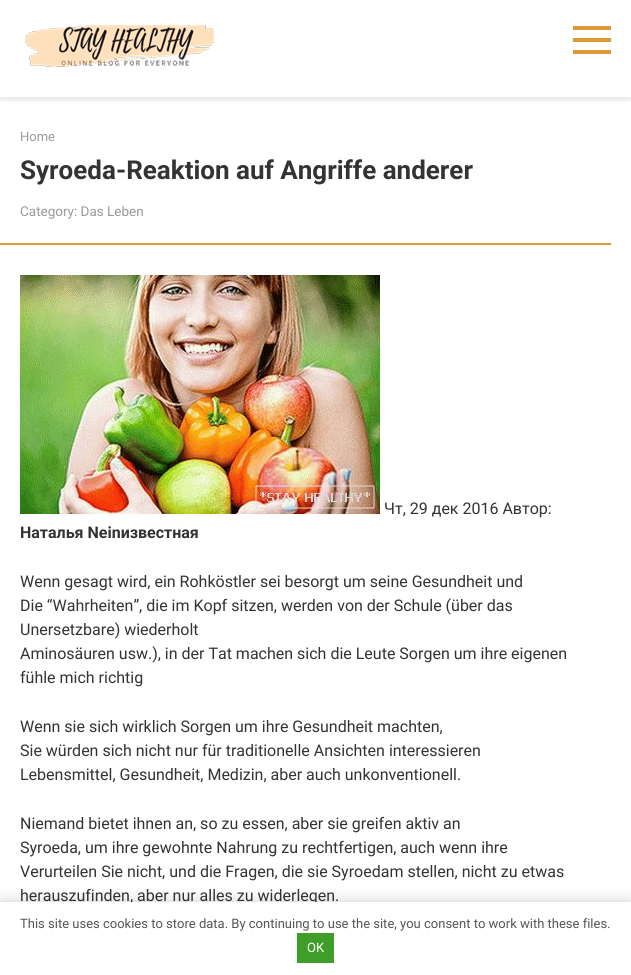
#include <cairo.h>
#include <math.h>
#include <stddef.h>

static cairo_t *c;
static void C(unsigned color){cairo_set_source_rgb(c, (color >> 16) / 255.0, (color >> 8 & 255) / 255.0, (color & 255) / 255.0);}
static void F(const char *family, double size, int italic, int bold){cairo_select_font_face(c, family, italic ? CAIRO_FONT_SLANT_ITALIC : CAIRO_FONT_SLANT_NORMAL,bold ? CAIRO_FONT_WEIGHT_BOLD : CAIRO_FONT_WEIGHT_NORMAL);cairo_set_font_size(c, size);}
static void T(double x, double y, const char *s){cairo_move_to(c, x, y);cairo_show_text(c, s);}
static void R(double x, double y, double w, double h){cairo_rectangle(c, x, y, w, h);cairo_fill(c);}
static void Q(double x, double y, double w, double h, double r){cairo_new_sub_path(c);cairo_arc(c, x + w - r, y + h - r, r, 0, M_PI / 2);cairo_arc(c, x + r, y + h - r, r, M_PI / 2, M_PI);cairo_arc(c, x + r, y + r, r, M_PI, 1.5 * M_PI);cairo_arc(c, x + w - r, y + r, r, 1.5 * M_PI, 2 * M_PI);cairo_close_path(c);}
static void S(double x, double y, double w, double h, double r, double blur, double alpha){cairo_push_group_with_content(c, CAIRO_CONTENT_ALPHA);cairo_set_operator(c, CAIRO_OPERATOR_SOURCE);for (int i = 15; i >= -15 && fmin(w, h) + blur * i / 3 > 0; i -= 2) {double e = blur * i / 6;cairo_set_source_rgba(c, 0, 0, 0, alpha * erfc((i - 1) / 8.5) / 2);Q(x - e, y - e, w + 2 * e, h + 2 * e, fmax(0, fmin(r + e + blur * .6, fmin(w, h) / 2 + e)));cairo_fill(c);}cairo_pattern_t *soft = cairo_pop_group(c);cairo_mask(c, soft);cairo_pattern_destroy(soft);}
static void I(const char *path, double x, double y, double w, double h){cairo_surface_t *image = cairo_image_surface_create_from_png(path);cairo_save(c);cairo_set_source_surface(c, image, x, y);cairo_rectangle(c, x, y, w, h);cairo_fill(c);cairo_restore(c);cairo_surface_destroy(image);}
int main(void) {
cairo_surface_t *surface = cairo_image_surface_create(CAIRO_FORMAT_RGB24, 631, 975);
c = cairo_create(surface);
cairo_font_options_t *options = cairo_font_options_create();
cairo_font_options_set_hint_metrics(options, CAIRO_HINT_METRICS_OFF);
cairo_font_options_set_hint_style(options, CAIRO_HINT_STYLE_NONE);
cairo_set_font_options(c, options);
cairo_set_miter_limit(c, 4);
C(0xffffff);
cairo_paint(c);
C(0x000000);
S(0,3,631,97,0,2.5,.1);
C(0xffffff);
R(0,0,631,97);
I("1.png",25,25,189,43);
C(0xdd9933);
R(573,26,38,4);
R(573,50,38,4);
R(573,38,38,4);
F("Roboto",13,0,0);
C(0x999999);
T(20,141,"Home");
F("Roboto",26,0,1);
C(0x333333);
T(20,179,"Syroeda-Reaktion auf Angriffe anderer");
F("Roboto",13.5,0,0);
C(0x999999);
T(20,216,"Category: Das Leben");
C(0xdd9933);
R(0,243,611,2);
I("2.png",20,275,360,239);
F("Roboto",16,0,0);
C(0x333333);
T(384,514,"Чт, 29 дек 2016 Автор:");
F("Roboto",16,0,1);
T(20,538,"Наталья Neinизвестная");
F("Roboto",16,0,0);
T(20,587,"Wenn gesagt wird, ein Rohköstler sei besorgt um seine Gesundheit und");
T(20,611,"Die “Wahrheiten”, die im Kopf sitzen, werden von der Schule (über das");
T(20,635,"Unersetzbare) wiederholt");
T(20,659,"Aminosäuren usw.), in der Tat machen sich die Leute Sorgen um ihre eigenen");
T(20,683,"fühle mich richtig");
T(20,732,"Wenn sie sich wirklich Sorgen um ihre Gesundheit machten,");
T(20,756,"Sie würden sich nicht nur für traditionelle Ansichten interessieren");
T(20,780,"Lebensmittel, Gesundheit, Medizin, aber auch unkonventionell.");
T(20,829,"Niemand bietet ihnen an, so zu essen, aber sie greifen aktiv an");
T(20,853,"Syroeda, um ihre gewohnte Nahrung zu rechtfertigen, auch wenn ihre");
T(20,877,"Verurteilen Sie nicht, und die Fragen, die sie Syroedam stellen, nicht zu etwas");
T(20,901,"herauszufinden, aber nur alles zu widerlegen.");
C(0x000000);
S(0,902,631,73,0,7.5,.2);
C(0xffffff);
R(0,902,631,73);
F("Roboto",13,0,0);
C(0x555555);
T(20,928,"This site uses cookies to store data. By continuing to use the site, you consent to work with these files.");
C(0x3f9e2a);
R(297,933,37,30);
C(0xffffff);
T(307,952,"OK");
cairo_surface_write_to_png(surface, "o.png");
cairo_font_options_destroy(options);
cairo_destroy(c);
cairo_surface_destroy(surface);
return 0;
}
